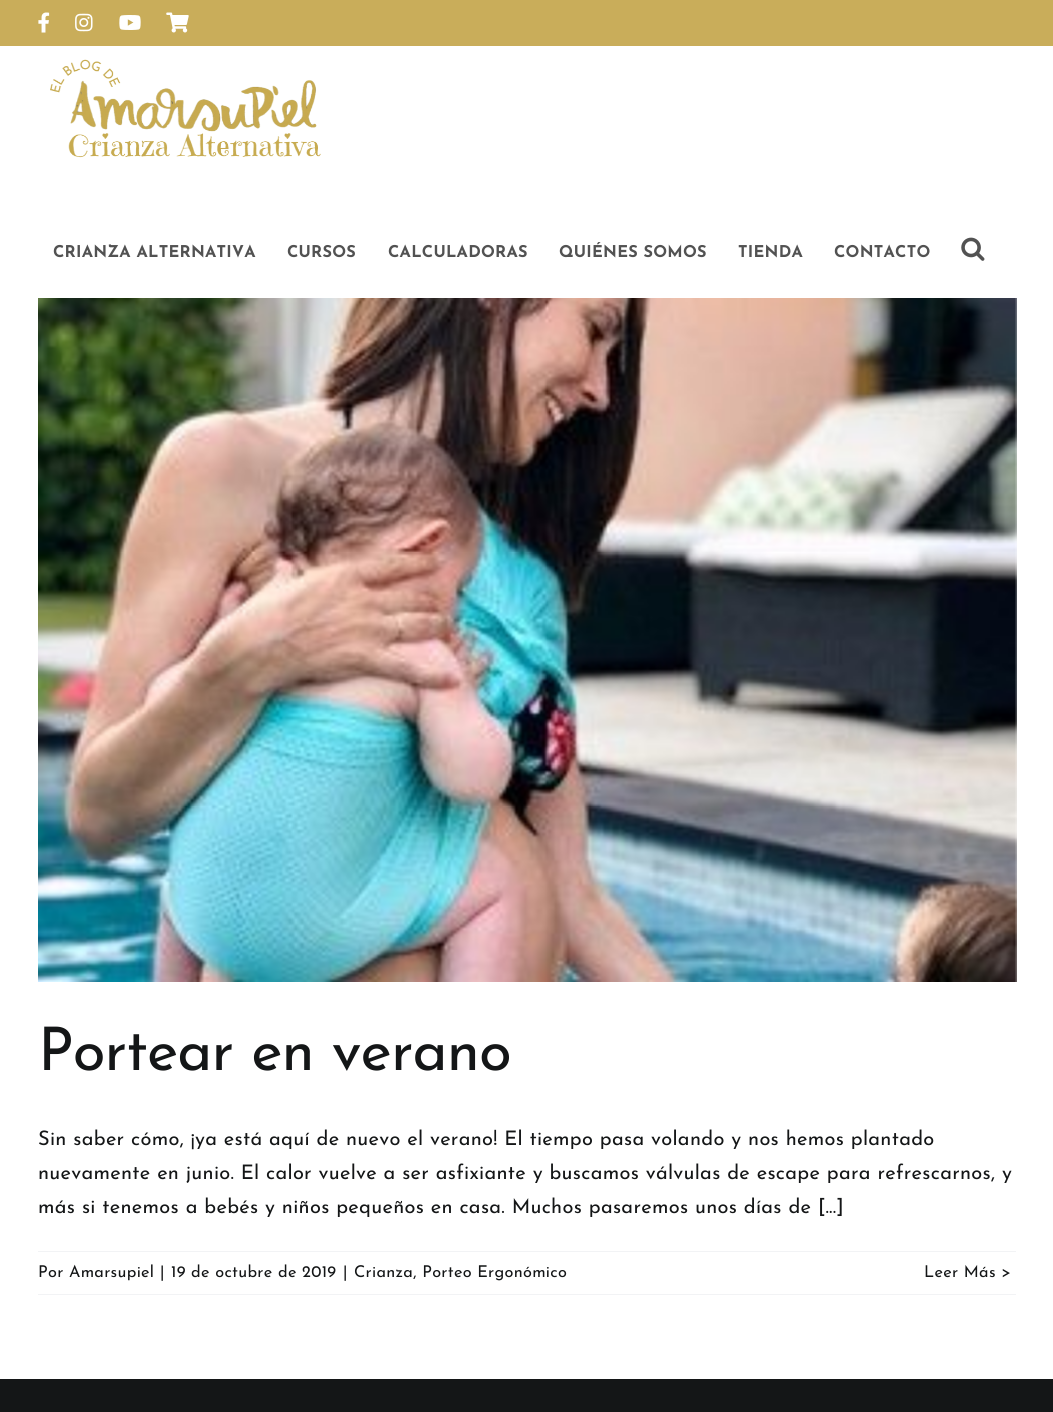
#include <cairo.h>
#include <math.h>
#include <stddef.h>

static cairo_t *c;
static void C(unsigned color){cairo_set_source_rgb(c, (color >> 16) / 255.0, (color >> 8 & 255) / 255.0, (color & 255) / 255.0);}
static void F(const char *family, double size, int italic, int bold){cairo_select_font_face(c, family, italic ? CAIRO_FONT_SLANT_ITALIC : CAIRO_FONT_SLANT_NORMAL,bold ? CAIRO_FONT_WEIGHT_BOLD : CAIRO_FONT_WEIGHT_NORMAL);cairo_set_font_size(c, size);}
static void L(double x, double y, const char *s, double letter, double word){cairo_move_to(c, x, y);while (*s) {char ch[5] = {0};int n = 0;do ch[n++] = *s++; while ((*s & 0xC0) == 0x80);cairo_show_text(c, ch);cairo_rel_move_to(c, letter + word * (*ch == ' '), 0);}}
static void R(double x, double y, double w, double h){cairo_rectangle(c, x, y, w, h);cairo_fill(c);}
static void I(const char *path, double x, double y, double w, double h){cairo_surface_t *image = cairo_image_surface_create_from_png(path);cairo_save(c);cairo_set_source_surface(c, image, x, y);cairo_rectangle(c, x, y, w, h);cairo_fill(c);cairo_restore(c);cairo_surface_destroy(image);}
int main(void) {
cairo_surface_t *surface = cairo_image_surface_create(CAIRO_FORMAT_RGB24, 1053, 1412);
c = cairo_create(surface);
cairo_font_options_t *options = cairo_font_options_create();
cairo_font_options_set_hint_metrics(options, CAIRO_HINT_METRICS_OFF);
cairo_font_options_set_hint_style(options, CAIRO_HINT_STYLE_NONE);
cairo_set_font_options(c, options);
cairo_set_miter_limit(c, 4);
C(0xffffff);
cairo_paint(c);
C(0xc9ad5a);
R(0,0,1053,46);
I("1.png",38,12,12,21);
I("2.png",75,13,18,19);
I("3.png",119,15,22,15);
I("4.png",166,12,23,21);
I("5.png",50,59,271,99);
F("Josefin Sans",16.25,0,1);
C(0x525252);
L(53,257,"CRIANZA ALTERNATIVA",.25,0);
L(287,257,"CURSOS",.25,0);
L(388,257,"CALCULADORAS",.25,0);
L(559,257,"QUIÉNES SOMOS",.25,0);
L(738,257,"TIENDA",.25,0);
L(834,257,"CONTACTO",.25,0);
I("6.png",961,237,24,24);
I("7.png",38,298,979,684);
F("Josefin Sans",60,0,0);
C(0x141617);
L(38,1070,"Portear en verano",-.9,0);
F("Josefin Sans",20,0,0);
L(38,1145,"Sin saber cómo, ¡ya está aquí de nuevo el verano! El tiempo pasa volando y nos hemos plantado",.3,0);
L(38,1179,"nuevamente en junio. El calor vuelve a ser asfixiante y buscamos válvulas de escape para refrescarnos, y",.3,0);
L(38,1213,"más si tenemos a bebés y niños pequeños en casa. Muchos pasaremos unos días de [...]",.3,0);
C(0xf2f3f5);
R(38,1251,978,1);
R(38,1294,978,1);
F("Josefin Sans",16.25,0,0);
C(0x141617);
L(38,1277,"Por Amarsupiel",.3,0);
L(160,1277,"|",.3,0);
L(171,1277,"19 de octubre de 2019",.3,0);
L(343,1277,"|",.3,0);
L(354,1277,"Crianza, Porteo Ergonómico",.3,0);
L(924,1277,"Leer Más >",.3,0);
R(0,1379,1053,33);
cairo_surface_write_to_png(surface, "o.png");
cairo_font_options_destroy(options);
cairo_destroy(c);
cairo_surface_destroy(surface);
return 0;
}
